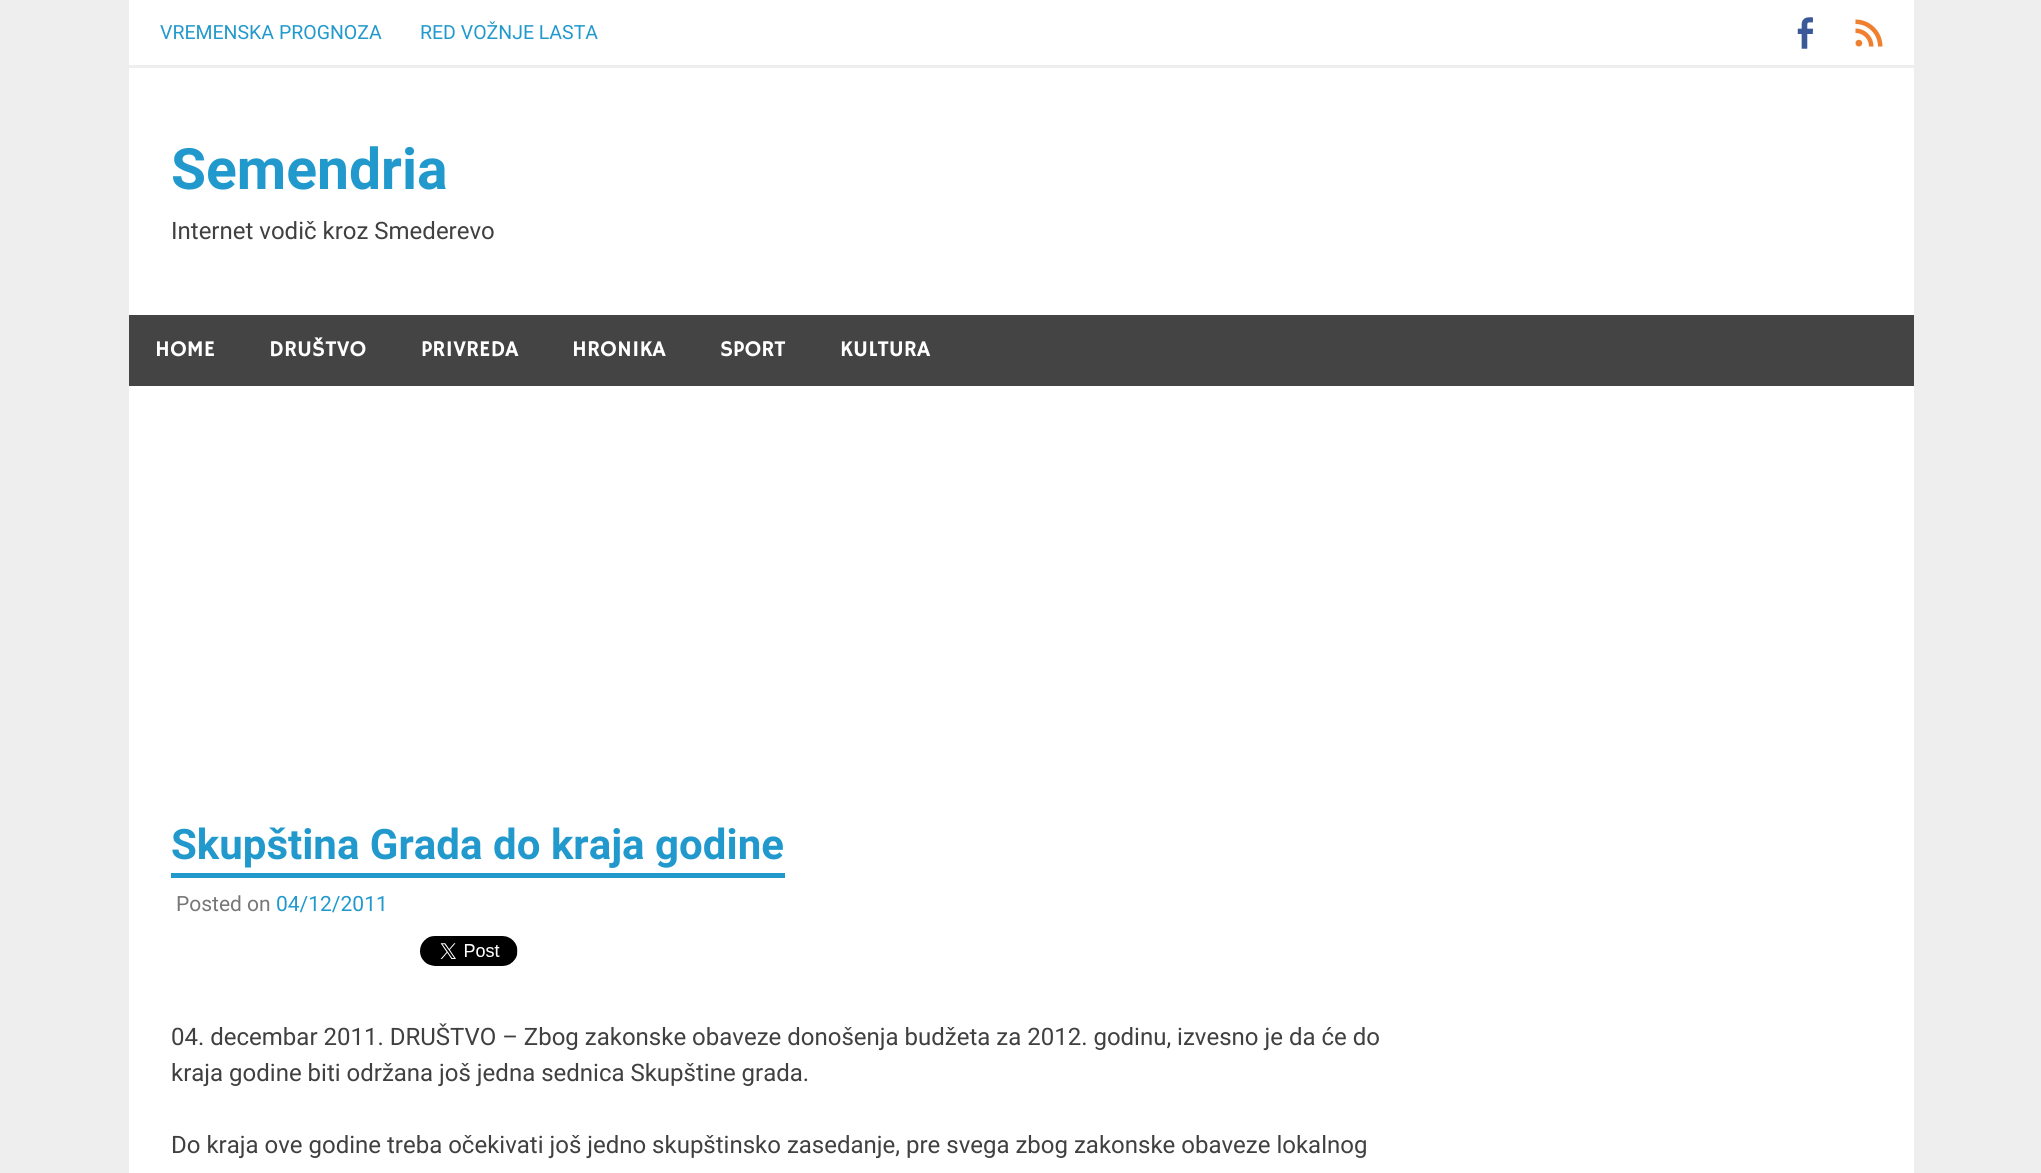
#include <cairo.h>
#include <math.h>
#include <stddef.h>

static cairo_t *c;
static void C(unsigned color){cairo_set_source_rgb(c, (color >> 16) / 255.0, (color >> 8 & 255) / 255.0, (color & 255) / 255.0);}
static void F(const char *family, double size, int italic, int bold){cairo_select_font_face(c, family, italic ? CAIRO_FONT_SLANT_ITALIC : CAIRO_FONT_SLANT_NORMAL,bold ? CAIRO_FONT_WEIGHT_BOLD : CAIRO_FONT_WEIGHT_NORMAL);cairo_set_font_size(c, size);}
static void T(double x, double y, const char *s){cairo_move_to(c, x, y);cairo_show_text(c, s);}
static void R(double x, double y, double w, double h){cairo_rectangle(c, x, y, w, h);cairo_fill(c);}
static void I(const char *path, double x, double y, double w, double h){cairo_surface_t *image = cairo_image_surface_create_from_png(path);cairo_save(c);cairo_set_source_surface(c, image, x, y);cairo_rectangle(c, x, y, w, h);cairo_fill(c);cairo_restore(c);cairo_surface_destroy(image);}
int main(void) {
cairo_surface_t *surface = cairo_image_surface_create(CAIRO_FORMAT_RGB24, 2041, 1173);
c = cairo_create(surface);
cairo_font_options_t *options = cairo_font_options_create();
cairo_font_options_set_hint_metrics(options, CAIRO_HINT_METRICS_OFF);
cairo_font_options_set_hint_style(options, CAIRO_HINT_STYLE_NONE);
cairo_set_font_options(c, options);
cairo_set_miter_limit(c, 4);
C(0xeeeeee);
cairo_paint(c);
C(0xffffff);
R(129,0,1785,1173);
C(0xeeeeee);
R(129,65,1785,3);
F("Roboto",19.5,0,0);
C(0x2299cc);
T(160,39,"VREMENSKA PROGNOZA");
T(420,39,"RED VOŽNJE LASTA");
I("1.png",1797,17,16,32);
I("2.png",1855,19,28,28);
F("Roboto",57,0,1);
T(171,189,"Semendria");
F("Roboto",24,0,0);
C(0x404040);
T(171,239,"Internet vodič kroz Smederevo");
C(0x444444);
R(129,315,1785,71);
F("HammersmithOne",22.5,0,0);
C(0xffffff);
T(155,356,"HOME");
T(269,356,"DRUŠTVO");
T(421,356,"PRIVREDA");
T(572,356,"HRONIKA");
T(720,356,"SPORT");
T(840,356,"KULTURA");
F("Roboto",42,0,1);
C(0x2299cc);
T(171,859,"Skupština Grada do kraja godine");
R(171,873,614,5);
F("Roboto",21,0,0);
C(0x777777);
T(176,911,"Posted on");
C(0x2299cc);
T(276,911,"04/12/2011");
I("3.png",420,936,98,30);
F("Roboto",24,0,0);
C(0x404040);
T(171,1045,"04. decembar 2011. DRUŠTVO – Zbog zakonske obaveze donošenja budžeta za 2012. godinu, izvesno je da će do");
T(171,1081,"kraja godine biti održana još jedna sednica Skupštine grada.");
T(171,1153,"Do kraja ove godine treba očekivati još jedno skupštinsko zasedanje, pre svega zbog zakonske obaveze lokalnog");
cairo_surface_write_to_png(surface, "o.png");
cairo_font_options_destroy(options);
cairo_destroy(c);
cairo_surface_destroy(surface);
return 0;
}
